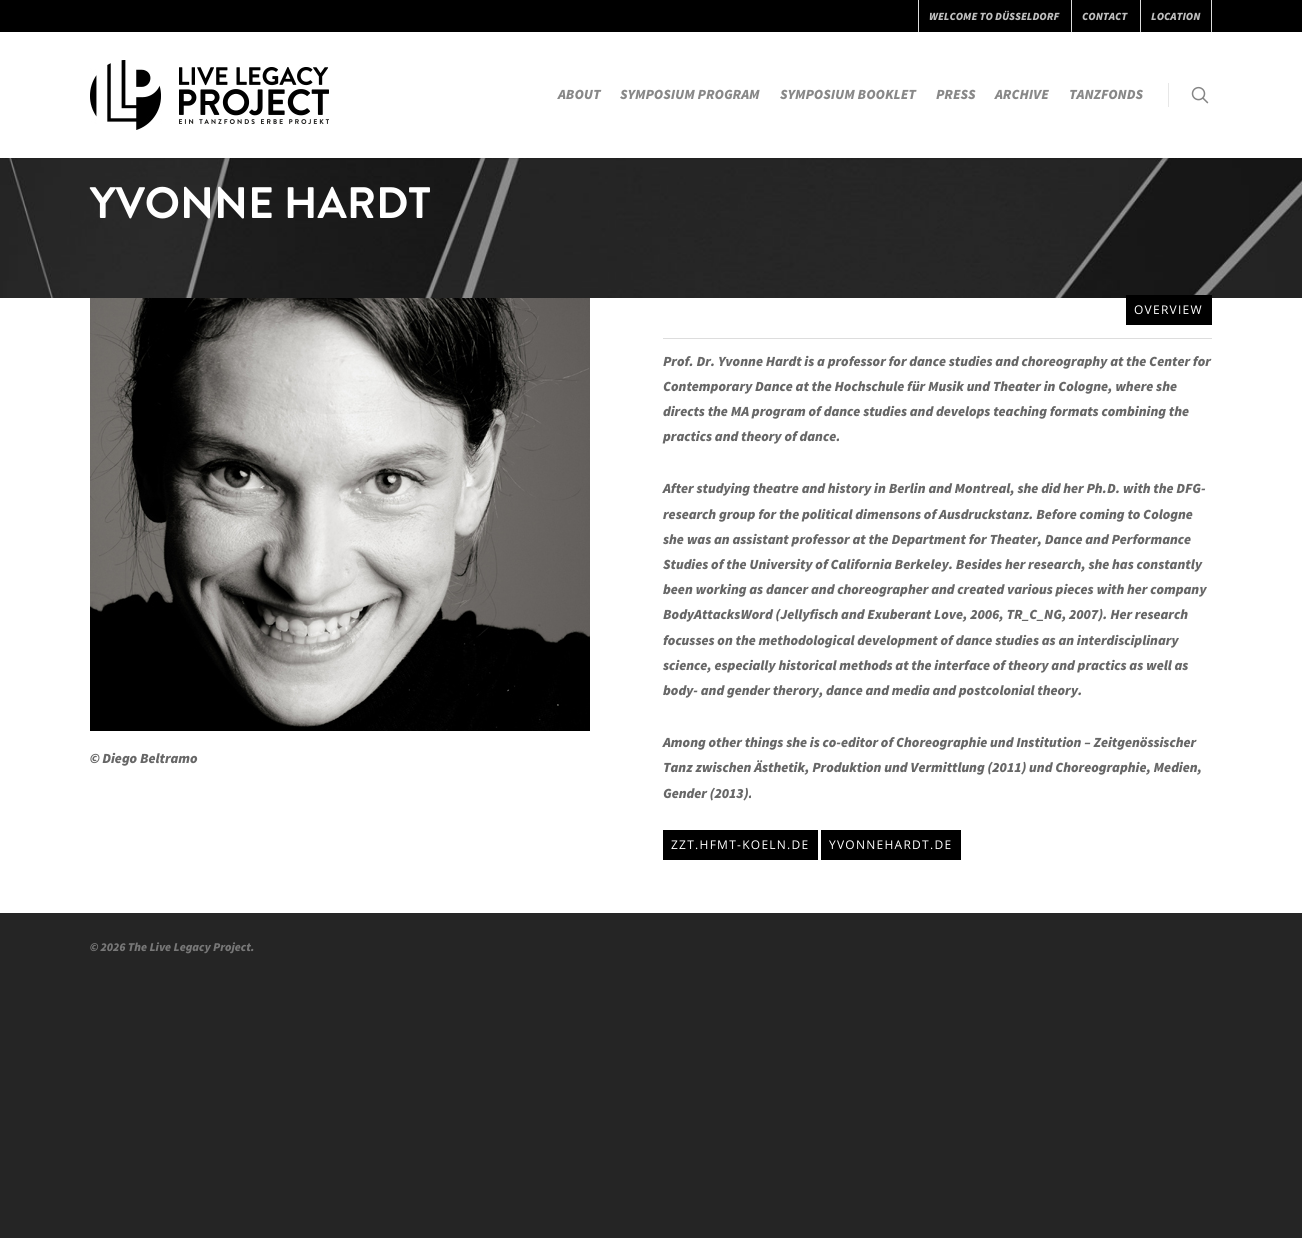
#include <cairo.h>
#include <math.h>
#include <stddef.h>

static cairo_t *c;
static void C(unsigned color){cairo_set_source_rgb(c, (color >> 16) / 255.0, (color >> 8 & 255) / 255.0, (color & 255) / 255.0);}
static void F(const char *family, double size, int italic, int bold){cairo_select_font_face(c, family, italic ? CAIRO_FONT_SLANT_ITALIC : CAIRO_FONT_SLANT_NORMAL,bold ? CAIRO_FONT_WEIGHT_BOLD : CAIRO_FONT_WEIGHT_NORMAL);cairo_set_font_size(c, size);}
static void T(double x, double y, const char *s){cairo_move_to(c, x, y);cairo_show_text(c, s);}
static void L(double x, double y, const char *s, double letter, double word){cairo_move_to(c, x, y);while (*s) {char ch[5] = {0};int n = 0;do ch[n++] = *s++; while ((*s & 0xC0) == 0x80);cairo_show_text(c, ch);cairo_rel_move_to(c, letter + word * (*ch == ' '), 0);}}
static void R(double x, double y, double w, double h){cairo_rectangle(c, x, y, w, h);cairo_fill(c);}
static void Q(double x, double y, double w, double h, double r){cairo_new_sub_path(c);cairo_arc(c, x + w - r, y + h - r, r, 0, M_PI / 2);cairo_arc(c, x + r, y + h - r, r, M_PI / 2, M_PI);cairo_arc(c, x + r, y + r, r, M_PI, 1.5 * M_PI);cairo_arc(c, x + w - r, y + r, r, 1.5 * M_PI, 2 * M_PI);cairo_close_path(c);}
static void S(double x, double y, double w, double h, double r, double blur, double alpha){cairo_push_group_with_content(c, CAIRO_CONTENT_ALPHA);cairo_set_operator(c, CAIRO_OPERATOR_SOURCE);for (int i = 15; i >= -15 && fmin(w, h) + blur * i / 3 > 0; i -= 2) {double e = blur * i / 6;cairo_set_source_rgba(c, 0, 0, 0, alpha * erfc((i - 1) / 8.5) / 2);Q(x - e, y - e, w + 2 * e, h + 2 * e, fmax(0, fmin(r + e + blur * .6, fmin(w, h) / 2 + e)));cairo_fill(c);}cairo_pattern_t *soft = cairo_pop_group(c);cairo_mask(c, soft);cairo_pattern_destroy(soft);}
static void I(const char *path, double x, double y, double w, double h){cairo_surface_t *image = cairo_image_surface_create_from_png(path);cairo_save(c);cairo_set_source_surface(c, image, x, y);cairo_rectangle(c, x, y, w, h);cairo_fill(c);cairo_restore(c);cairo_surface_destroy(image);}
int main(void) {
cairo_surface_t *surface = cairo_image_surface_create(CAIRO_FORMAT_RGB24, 1302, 1238);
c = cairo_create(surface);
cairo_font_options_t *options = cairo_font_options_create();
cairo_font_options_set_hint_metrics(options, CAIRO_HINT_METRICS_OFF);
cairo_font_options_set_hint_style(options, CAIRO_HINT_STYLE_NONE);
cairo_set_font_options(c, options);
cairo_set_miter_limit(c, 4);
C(0x252525);
cairo_paint(c);
C(0x000000);
R(0,0,1302,32);
C(0xdddddd);
R(918,0,1,33);
F("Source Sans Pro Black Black",11,1,0);
C(0xbfbfbf);
T(929,20,"WELCOME TO DÜSSELDORF");
C(0xdddddd);
R(1071,0,1,33);
C(0xbfbfbf);
T(1082,20,"CONTACT");
C(0xdddddd);
R(1211,0,1,33);
R(1140,0,1,33);
C(0xbfbfbf);
T(1151,20,"LOCATION");
I("3.png",0,158,1302,140);
C(0x000000);
S(0,32,1302,126,0,1.5,.22);
C(0xffffff);
R(0,32,1302,126);
I("1.png",90,60,239,70);
F("Source Sans Pro Black Black",14,1,0);
C(0x888888);
T(558,99,"ABOUT");
T(620,99,"SYMPOSIUM PROGRAM");
T(780,99,"SYMPOSIUM BOOKLET");
T(936,99,"PRESS");
T(995,99,"ARCHIVE");
T(1069,99,"TANZFONDS");
C(0xe7e7e7);
R(1168,83,1,24);
I("2.png",1191,86,18,18);
F("Brandon Grotesque",44,0,1);
C(0xffffff);
T(90,218,"YVONNE HARDT");
R(0,298,1302,615);
I("4.png",90,298,500,433);
F("Source Sans Pro Black Black",14,1,0);
C(0x676767);
T(90,763,"© Diego Beltramo");
C(0x000000);
R(1126,295,86,30);
F("Open Sans",12,0,0);
C(0xffffff);
L(1134,314,"OVERVIEW",1.25,0);
C(0xdddddd);
R(663,338,549,1);
F("Source Sans Pro Black Black",14,1,0);
C(0x676767);
T(663,366,"Prof. Dr. Yvonne Hardt is a professor for dance studies and choreography at the Center for");
T(663,391,"Contemporary Dance at the Hochschule für Musik und Theater in Cologne, where she");
T(663,416,"directs the MA program of dance studies and develops teaching formats combining the");
T(663,441,"practics and theory of dance.");
T(663,493,"After studying theatre and history in Berlin and Montreal, she did her Ph.D. with the DFG-");
T(663,519,"research group for the political dimensons of Ausdruckstanz. Before coming to Cologne");
T(663,544,"she was an assistant professor at the Department for Theater, Dance and Performance");
T(663,569,"Studies of the University of California Berkeley. Besides her research, she has constantly");
T(663,594,"been working as dancer and choreographer and created various pieces with her company");
T(663,619,"BodyAttacksWord (Jellyfisch and Exuberant Love, 2006, TR_C_NG, 2007). Her research");
T(663,645,"focusses on the methodological development of dance studies as an interdisciplinary");
T(663,670,"science, especially historical methods at the interface of theory and practics as well as");
T(663,695,"body- and gender therory, dance and media and postcolonial theory.");
T(663,747,"Among other things she is co-editor of Choreographie und Institution – Zeitgenössischer");
T(663,772,"Tanz zwischen Ästhetik, Produktion und Vermittlung (2011) und Choreographie, Medien,");
T(663,798,"Gender (2013).");
C(0x000000);
R(663,830,155,30);
F("Open Sans",12,0,0);
C(0xffffff);
L(671,849,"ZZT.HFMT-KOELN.DE",1.25,0);
C(0x000000);
R(821,830,140,30);
C(0xffffff);
L(829,849,"YVONNEHARDT.DE",1.25,0);
F("Source Sans Pro Black Black",12,1,0);
C(0x777777);
T(90,951,"© 2026 The Live Legacy Project.");
cairo_surface_write_to_png(surface, "o.png");
cairo_font_options_destroy(options);
cairo_destroy(c);
cairo_surface_destroy(surface);
return 0;
}
